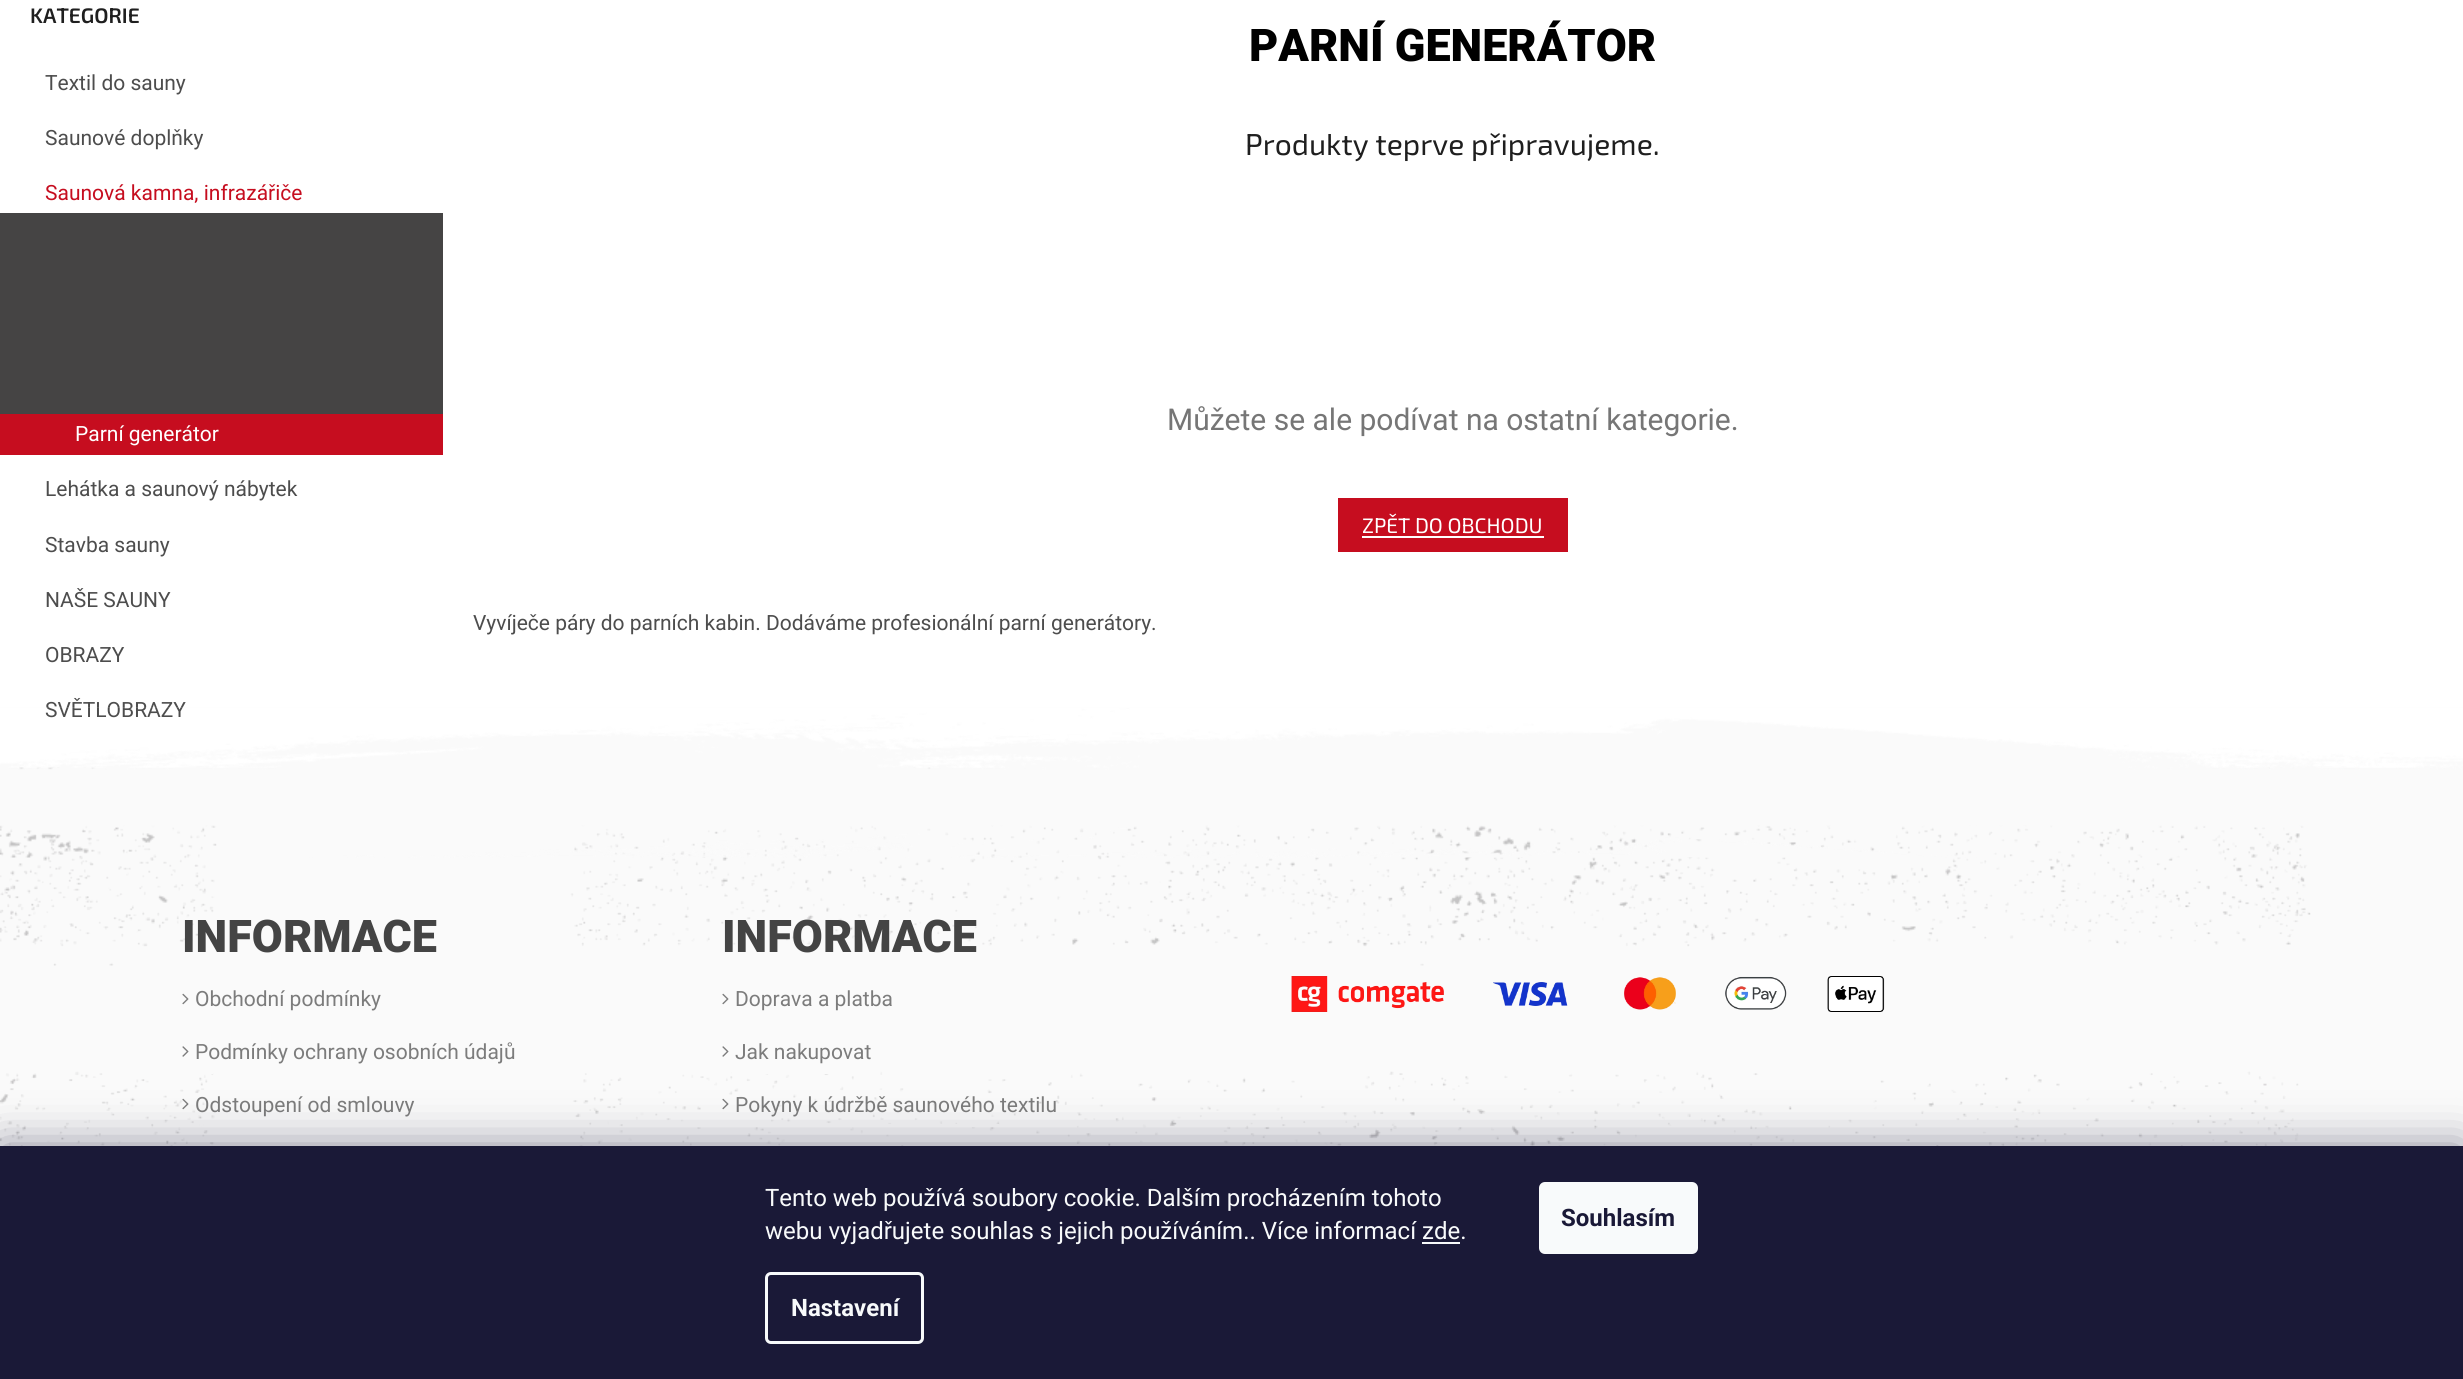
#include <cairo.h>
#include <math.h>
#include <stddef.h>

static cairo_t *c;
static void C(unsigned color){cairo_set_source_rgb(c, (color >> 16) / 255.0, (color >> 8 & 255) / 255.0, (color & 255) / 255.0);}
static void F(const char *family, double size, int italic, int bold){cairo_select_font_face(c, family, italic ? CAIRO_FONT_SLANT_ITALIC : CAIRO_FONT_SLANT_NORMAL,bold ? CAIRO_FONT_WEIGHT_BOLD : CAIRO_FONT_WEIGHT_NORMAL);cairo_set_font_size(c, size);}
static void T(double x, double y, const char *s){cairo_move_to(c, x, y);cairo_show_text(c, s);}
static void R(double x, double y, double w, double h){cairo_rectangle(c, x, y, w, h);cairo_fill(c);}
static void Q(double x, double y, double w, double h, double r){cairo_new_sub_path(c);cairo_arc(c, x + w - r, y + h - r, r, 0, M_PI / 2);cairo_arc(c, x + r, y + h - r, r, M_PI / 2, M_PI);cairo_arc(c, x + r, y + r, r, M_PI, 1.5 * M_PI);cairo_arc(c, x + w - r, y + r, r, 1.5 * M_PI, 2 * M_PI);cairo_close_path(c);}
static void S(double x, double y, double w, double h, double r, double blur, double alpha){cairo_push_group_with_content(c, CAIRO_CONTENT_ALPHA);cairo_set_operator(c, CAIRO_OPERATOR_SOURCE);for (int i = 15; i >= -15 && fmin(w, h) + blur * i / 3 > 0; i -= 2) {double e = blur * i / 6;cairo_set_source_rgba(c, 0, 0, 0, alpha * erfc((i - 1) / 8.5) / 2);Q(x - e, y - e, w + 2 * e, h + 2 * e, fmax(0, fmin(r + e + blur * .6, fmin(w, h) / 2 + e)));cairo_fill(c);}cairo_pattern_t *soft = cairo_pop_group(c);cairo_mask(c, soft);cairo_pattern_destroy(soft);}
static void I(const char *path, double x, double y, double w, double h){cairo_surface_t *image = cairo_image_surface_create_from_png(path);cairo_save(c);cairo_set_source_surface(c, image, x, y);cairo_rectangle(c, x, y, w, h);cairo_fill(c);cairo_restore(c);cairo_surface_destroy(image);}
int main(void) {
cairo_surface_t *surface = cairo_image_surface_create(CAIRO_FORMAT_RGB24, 2463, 1379);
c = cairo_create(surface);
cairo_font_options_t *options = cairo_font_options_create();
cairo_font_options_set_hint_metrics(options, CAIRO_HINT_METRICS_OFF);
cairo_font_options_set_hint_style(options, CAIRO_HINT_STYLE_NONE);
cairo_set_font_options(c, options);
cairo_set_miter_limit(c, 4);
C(0xffffff);
cairo_paint(c);
F("Exo 2 SemiBold",21,0,0);
C(0x1f1f1f);
T(30,23,"KATEGORIE");
F("Roboto",21,0,0);
C(0x4d4d4d);
T(45,90,"Textil do sauny");
T(45,145,"Saunové doplňky");
C(0xc60d1f);
T(45,200,"Saunová kamna, infrazářiče");
C(0x454444);
R(0,213,443,201);
C(0xc60d1f);
R(0,414,443,41);
C(0xffffff);
T(75,441,"Parní generátor");
C(0x4d4d4d);
T(45,496,"Lehátka a saunový nábytek");
T(45,552,"Stavba sauny");
T(45,607,"NAŠE SAUNY");
T(45,662,"OBRAZY");
T(45,717,"SVĚTLOBRAZY");
F("Roboto Black",45,0,0);
C(0x000000);
T(1249,61,"PARNÍ GENERÁTOR");
F("Exo 2",30,0,0);
C(0x1f1f1f);
T(1245,155,"Produkty teprve připravujeme.");
F("Roboto",30,0,0);
C(0x767676);
T(1167,430,"Můžete se ale podívat na ostatní kategorie.");
C(0xc60d1f);
R(1338,498,230,54);
F("Exo 2",21,0,0);
C(0xffffff);
T(1362,533,"ZPĚT DO OBCHODU");
R(1362,536,182,2);
F("Roboto",21,0,0);
C(0x4d4d4d);
T(473,630,"Vyvíječe páry do parních kabin. Dodáváme profesionální parní generátory.");
C(0xfafafa);
R(0,768,2463,378);
I("1.png",0,767,2311,379);
I("2.png",0,707,2463,151);
F("Roboto Black",45,0,0);
C(0x444444);
T(182,952,"INFORMACE");
I("3.png",182,993,7,12);
F("Roboto",21,0,0);
C(0x7c7c7c);
T(195,1006,"Obchodní podmínky");
C(0xfafafa);
R(211,1073,2,1);
I("4.png",182,1046,7,11);
C(0x7c7c7c);
T(195,1059,"Podmínky ochrany osobních údajů");
C(0xfafafa);
R(200,1124,3,2);
I("5.png",182,1098,7,12);
C(0x7c7c7c);
T(195,1112,"Odstoupení od smlouvy");
F("Roboto Black",45,0,0);
C(0x444444);
T(722,952,"INFORMACE");
I("3.png",722,993,7,12);
F("Roboto",21,0,0);
C(0x7c7c7c);
T(735,1006,"Doprava a platba");
C(0xfafafa);
R(732,1071,97,3);
I("4.png",722,1046,7,11);
C(0x7c7c7c);
T(735,1059,"Jak nakupovat");
C(0xfafafa);
R(722,1124,277,3);
I("3.png",722,1098,7,12);
C(0x7c7c7c);
T(735,1112,"Pokyny k údržbě saunového textilu");
I("6.png",1291,976,594,36);
C(0x1b1939);
S(0,1146,2463,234,0,22.5,.5);
C(0x1a1937);
R(0,1146,2463,233);
F("Roboto",24,0,0);
C(0xf8fafb);
T(765,1206,"Tento web používá soubory cookie. Dalším procházením tohoto");
T(765,1239,"webu vyjadřujete souhlas s jejich používáním.. Více informací zde.");
R(1422,1242,38,2);
Q(766.5,1273.5,156,69,4.5);
cairo_set_line_width(c,3);
cairo_stroke(c);
F("Roboto",24,0,1);
T(791,1316,"Nastavení");
Q(1539,1182,159,72,6);
cairo_fill(c);
C(0x1a1937);
T(1561,1226,"Souhlasím");
cairo_surface_write_to_png(surface, "o.png");
cairo_font_options_destroy(options);
cairo_destroy(c);
cairo_surface_destroy(surface);
return 0;
}
